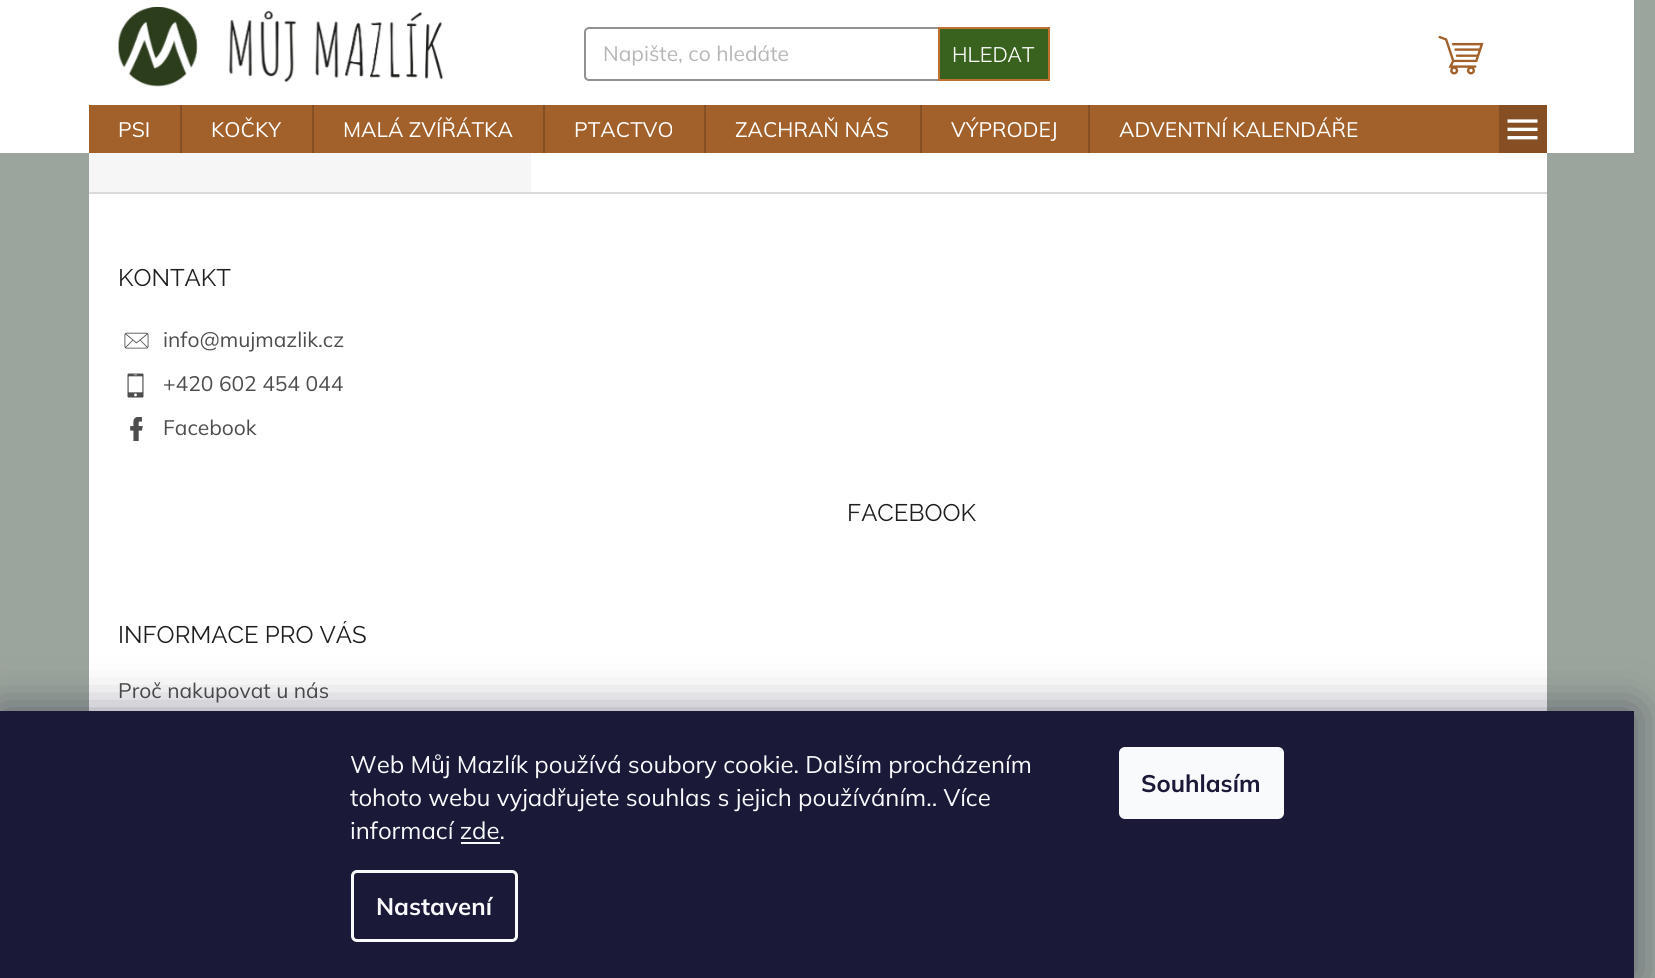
#include <cairo.h>
#include <math.h>
#include <stddef.h>

static cairo_t *c;
static void C(unsigned color){cairo_set_source_rgb(c, (color >> 16) / 255.0, (color >> 8 & 255) / 255.0, (color & 255) / 255.0);}
static void F(const char *family, double size, int italic, int bold){cairo_select_font_face(c, family, italic ? CAIRO_FONT_SLANT_ITALIC : CAIRO_FONT_SLANT_NORMAL,bold ? CAIRO_FONT_WEIGHT_BOLD : CAIRO_FONT_WEIGHT_NORMAL);cairo_set_font_size(c, size);}
static void T(double x, double y, const char *s){cairo_move_to(c, x, y);cairo_show_text(c, s);}
static void R(double x, double y, double w, double h){cairo_rectangle(c, x, y, w, h);cairo_fill(c);}
static void Q(double x, double y, double w, double h, double r){cairo_new_sub_path(c);cairo_arc(c, x + w - r, y + h - r, r, 0, M_PI / 2);cairo_arc(c, x + r, y + h - r, r, M_PI / 2, M_PI);cairo_arc(c, x + r, y + r, r, M_PI, 1.5 * M_PI);cairo_arc(c, x + w - r, y + r, r, 1.5 * M_PI, 2 * M_PI);cairo_close_path(c);}
static void S(double x, double y, double w, double h, double r, double blur, double alpha){cairo_push_group_with_content(c, CAIRO_CONTENT_ALPHA);cairo_set_operator(c, CAIRO_OPERATOR_SOURCE);for (int i = 15; i >= -15 && fmin(w, h) + blur * i / 3 > 0; i -= 2) {double e = blur * i / 6;cairo_set_source_rgba(c, 0, 0, 0, alpha * erfc((i - 1) / 8.5) / 2);Q(x - e, y - e, w + 2 * e, h + 2 * e, fmax(0, fmin(r + e + blur * .6, fmin(w, h) / 2 + e)));cairo_fill(c);}cairo_pattern_t *soft = cairo_pop_group(c);cairo_mask(c, soft);cairo_pattern_destroy(soft);}
static void I(const char *path, double x, double y, double w, double h){cairo_surface_t *image = cairo_image_surface_create_from_png(path);cairo_save(c);cairo_set_source_surface(c, image, x, y);cairo_rectangle(c, x, y, w, h);cairo_fill(c);cairo_restore(c);cairo_surface_destroy(image);}
int main(void) {
cairo_surface_t *surface = cairo_image_surface_create(CAIRO_FORMAT_RGB24, 1655, 978);
c = cairo_create(surface);
cairo_font_options_t *options = cairo_font_options_create();
cairo_font_options_set_hint_metrics(options, CAIRO_HINT_METRICS_OFF);
cairo_font_options_set_hint_style(options, CAIRO_HINT_STYLE_NONE);
cairo_set_font_options(c, options);
cairo_set_miter_limit(c, 4);
C(0x9ca59d);
cairo_paint(c);
C(0xffffff);
R(0,0,1634,153);
I("1.png",118,7,326,80);
Q(585,28,464,52,4);
C(0x919191);
cairo_stroke(c);
F("Mulish",21,0,0);
C(0xb6b6b6);
T(603,61,"Napište, co hledáte");
C(0x39621e);
cairo_rectangle(c,939,28,110,52);
cairo_fill_preserve(c);
C(0xc1712f);
cairo_stroke(c);
F("Raleway",21,0,0);
C(0xffffff);
T(952,62,"HLEDAT");
I("2.png",1438,35,46,40);
C(0xa2602a);
R(89,105,1410,48);
F("Mulish",21,0,0);
C(0xffffff);
T(118,137,"PSI");
C(0x864f23);
R(180,105,2,48);
C(0xffffff);
T(211,137,"KOČKY");
C(0x864f23);
R(312,105,2,48);
C(0xffffff);
T(343,137,"MALÁ ZVÍŘÁTKA");
C(0x864f23);
R(543,105,2,48);
C(0xffffff);
T(574,137,"PTACTVO");
C(0x864f23);
R(704,105,2,48);
C(0xffffff);
T(735,137,"ZACHRAŇ NÁS");
C(0x864f23);
R(920,105,2,48);
C(0xffffff);
T(951,137,"VÝPRODEJ");
C(0x864f23);
R(1088,105,2,48);
C(0xffffff);
T(1119,137,"ADVENTNÍ KALENDÁŘE");
C(0x864f23);
R(1499,105,48,48);
I("3.png",1507,119,31,21);
C(0xffffff);
R(531,153,1016,39);
C(0xf6f6f6);
R(89,153,442,39);
C(0xffffff);
R(89,194,1458,517);
C(0xdadada);
R(89,192,1458,2);
F("Raleway",24,0,0);
C(0x1f1f1f);
T(118,286,"KONTAKT");
I("4.png",124,332,25,17);
F("Mulish",21,0,0);
C(0x4d4d4d);
T(163,347,"info@mujmazlik.cz");
I("5.png",127,373,17,25);
T(163,391,"+420 602 454 044");
I("6.png",130,417,13,25);
T(163,435,"Facebook");
F("Raleway",24,0,0);
C(0x1f1f1f);
T(847,521,"FACEBOOK");
T(118,643,"INFORMACE PRO VÁS");
F("Mulish",21,0,0);
C(0x4d4d4d);
T(118,698,"Proč nakupovat u nás");
C(0x1b1939);
S(0,711,1634,267,0,22.5,.5);
C(0x1a1937);
R(0,711,1634,267);
F("Mulish",24,0,0);
C(0xf8fafb);
T(350,773,"Web Můj Mazlík používá soubory cookie. Dalším procházením");
T(350,806,"tohoto webu vyjadřujete souhlas s jejich používáním.. Více");
T(350,839,"informací zde.");
R(461,842,39,2);
Q(352.5,871.5,164,69,4.5);
cairo_set_line_width(c,3);
cairo_stroke(c);
F("Mulish",24,0,1);
T(376,915,"Nastavení");
Q(1119,747,165,72,6);
cairo_fill(c);
C(0x1a1937);
T(1141,792,"Souhlasím");
cairo_surface_write_to_png(surface, "o.png");
cairo_font_options_destroy(options);
cairo_destroy(c);
cairo_surface_destroy(surface);
return 0;
}
